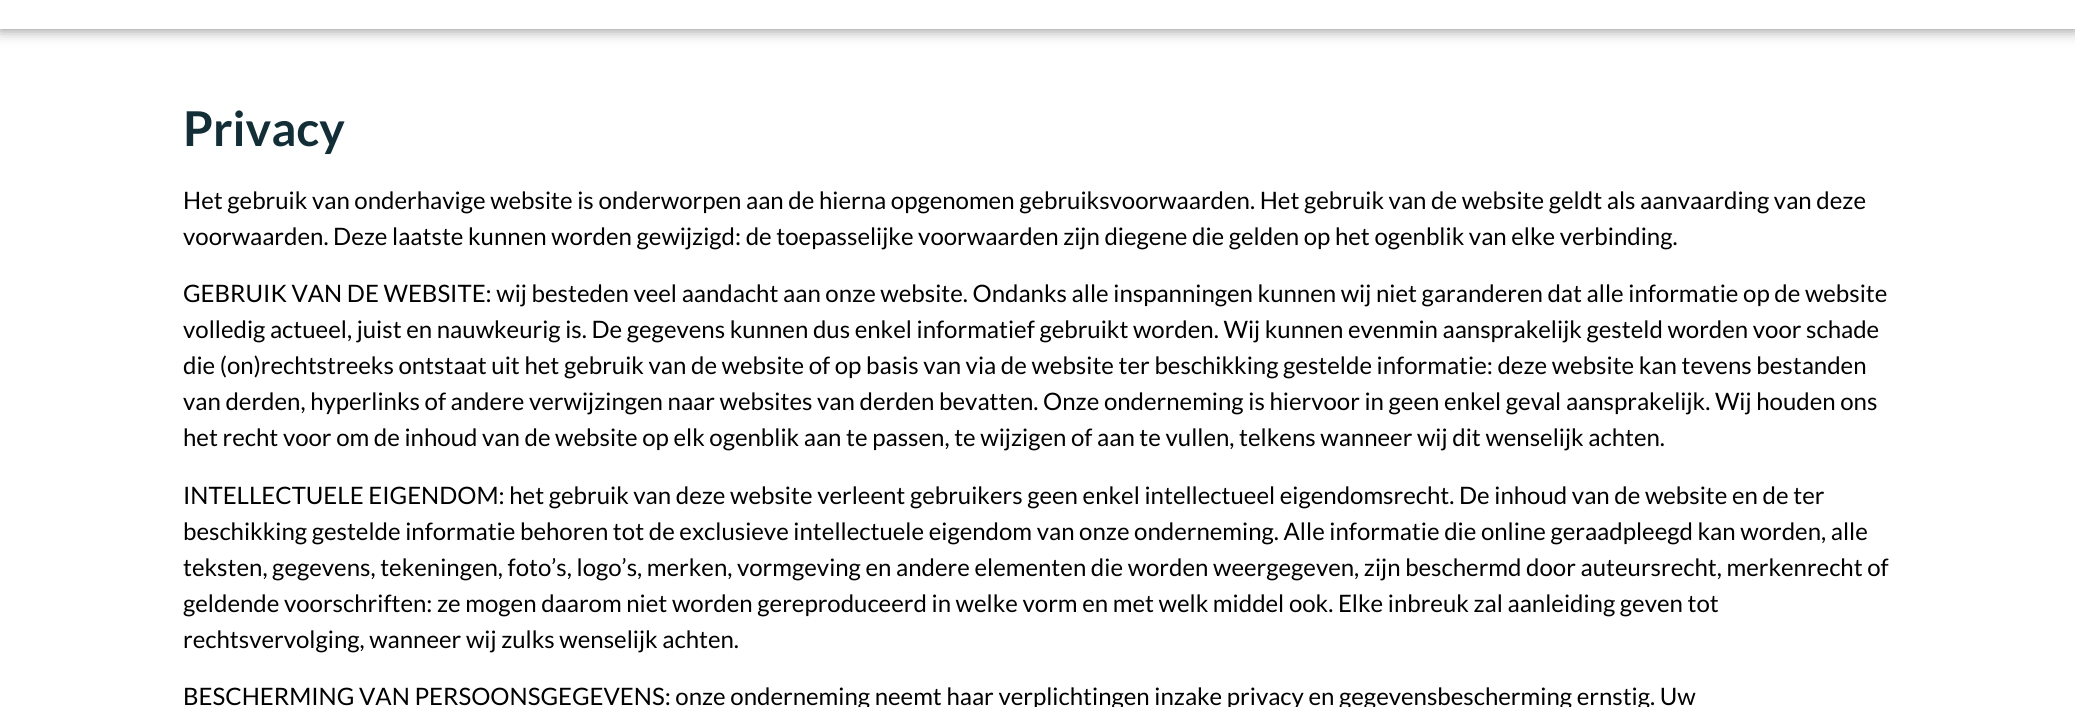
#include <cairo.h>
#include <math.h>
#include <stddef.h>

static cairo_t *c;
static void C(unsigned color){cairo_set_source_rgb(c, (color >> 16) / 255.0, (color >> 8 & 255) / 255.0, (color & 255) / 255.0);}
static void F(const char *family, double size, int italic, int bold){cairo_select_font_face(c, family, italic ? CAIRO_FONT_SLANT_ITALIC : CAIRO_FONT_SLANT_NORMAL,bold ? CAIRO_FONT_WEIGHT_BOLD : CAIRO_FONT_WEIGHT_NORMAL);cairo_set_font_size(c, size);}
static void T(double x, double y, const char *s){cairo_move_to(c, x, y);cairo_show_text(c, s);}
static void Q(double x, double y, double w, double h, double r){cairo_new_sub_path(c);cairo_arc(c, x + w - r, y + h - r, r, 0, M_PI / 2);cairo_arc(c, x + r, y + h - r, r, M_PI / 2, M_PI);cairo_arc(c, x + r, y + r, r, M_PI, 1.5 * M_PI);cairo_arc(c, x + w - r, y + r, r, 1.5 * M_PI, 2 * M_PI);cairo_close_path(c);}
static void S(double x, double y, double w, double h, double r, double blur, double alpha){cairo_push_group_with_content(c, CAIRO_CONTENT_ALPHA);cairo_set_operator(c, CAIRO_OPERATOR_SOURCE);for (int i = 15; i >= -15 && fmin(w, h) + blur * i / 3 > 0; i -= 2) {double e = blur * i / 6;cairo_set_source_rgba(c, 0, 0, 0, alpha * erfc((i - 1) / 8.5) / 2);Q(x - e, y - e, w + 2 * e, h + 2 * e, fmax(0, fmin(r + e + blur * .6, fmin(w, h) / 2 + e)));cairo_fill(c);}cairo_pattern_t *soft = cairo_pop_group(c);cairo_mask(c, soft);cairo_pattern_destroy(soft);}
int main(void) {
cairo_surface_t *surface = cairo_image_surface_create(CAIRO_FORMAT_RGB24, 2075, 707);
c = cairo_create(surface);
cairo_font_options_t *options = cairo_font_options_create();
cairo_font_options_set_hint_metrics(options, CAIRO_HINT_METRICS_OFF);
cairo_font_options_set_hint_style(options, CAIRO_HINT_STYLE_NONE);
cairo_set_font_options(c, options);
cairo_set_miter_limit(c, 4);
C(0xffffff);
cairo_paint(c);
cairo_save(c);
cairo_set_fill_rule(c,CAIRO_FILL_RULE_EVEN_ODD);
cairo_new_path(c);
cairo_move_to(c,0,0);
cairo_line_to(c,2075,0);
cairo_line_to(c,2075,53);
cairo_line_to(c,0,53);
cairo_close_path(c);
cairo_move_to(c,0,-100);
cairo_line_to(c,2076,-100);
cairo_line_to(c,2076,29);
cairo_line_to(c,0,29);
cairo_close_path(c);
cairo_clip(c);
C(0x000000);
S(0,-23,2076,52,0,7.5,.5);
cairo_restore(c);
F("Lato",48,0,1);
C(0x132e37);
T(183,146,"Privacy");
F("Lato",24,0,0);
C(0x000000);
T(183,209,"Het gebruik van onderhavige website is onderworpen aan de hierna opgenomen gebruiksvoorwaarden. Het gebruik van de website geldt als aanvaarding van deze");
T(183,245,"voorwaarden. Deze laatste kunnen worden gewijzigd: de toepasselijke voorwaarden zijn diegene die gelden op het ogenblik van elke verbinding.");
T(183,302,"GEBRUIK VAN DE WEBSITE: wij besteden veel aandacht aan onze website. Ondanks alle inspanningen kunnen wij niet garanderen dat alle informatie op de website");
T(183,338,"volledig actueel, juist en nauwkeurig is. De gegevens kunnen dus enkel informatief gebruikt worden. Wij kunnen evenmin aansprakelijk gesteld worden voor schade");
T(183,374,"die (on)rechtstreeks ontstaat uit het gebruik van de website of op basis van via de website ter beschikking gestelde informatie: deze website kan tevens bestanden");
T(183,410,"van derden, hyperlinks of andere verwijzingen naar websites van derden bevatten. Onze onderneming is hiervoor in geen enkel geval aansprakelijk. Wij houden ons");
T(183,446,"het recht voor om de inhoud van de website op elk ogenblik aan te passen, te wijzigen of aan te vullen, telkens wanneer wij dit wenselijk achten.");
T(183,504,"INTELLECTUELE EIGENDOM: het gebruik van deze website verleent gebruikers geen enkel intellectueel eigendomsrecht. De inhoud van de website en de ter");
T(183,540,"beschikking gestelde informatie behoren tot de exclusieve intellectuele eigendom van onze onderneming. Alle informatie die online geraadpleegd kan worden, alle");
T(183,576,"teksten, gegevens, tekeningen, foto’s, logo’s, merken, vormgeving en andere elementen die worden weergegeven, zijn beschermd door auteursrecht, merkenrecht of");
T(183,612,"geldende voorschriften: ze mogen daarom niet worden gereproduceerd in welke vorm en met welk middel ook. Elke inbreuk zal aanleiding geven tot");
T(183,648,"rechtsvervolging, wanneer wij zulks wenselijk achten.");
T(183,705,"BESCHERMING VAN PERSOONSGEGEVENS: onze onderneming neemt haar verplichtingen inzake privacy en gegevensbescherming ernstig. Uw");
cairo_surface_write_to_png(surface, "o.png");
cairo_font_options_destroy(options);
cairo_destroy(c);
cairo_surface_destroy(surface);
return 0;
}
